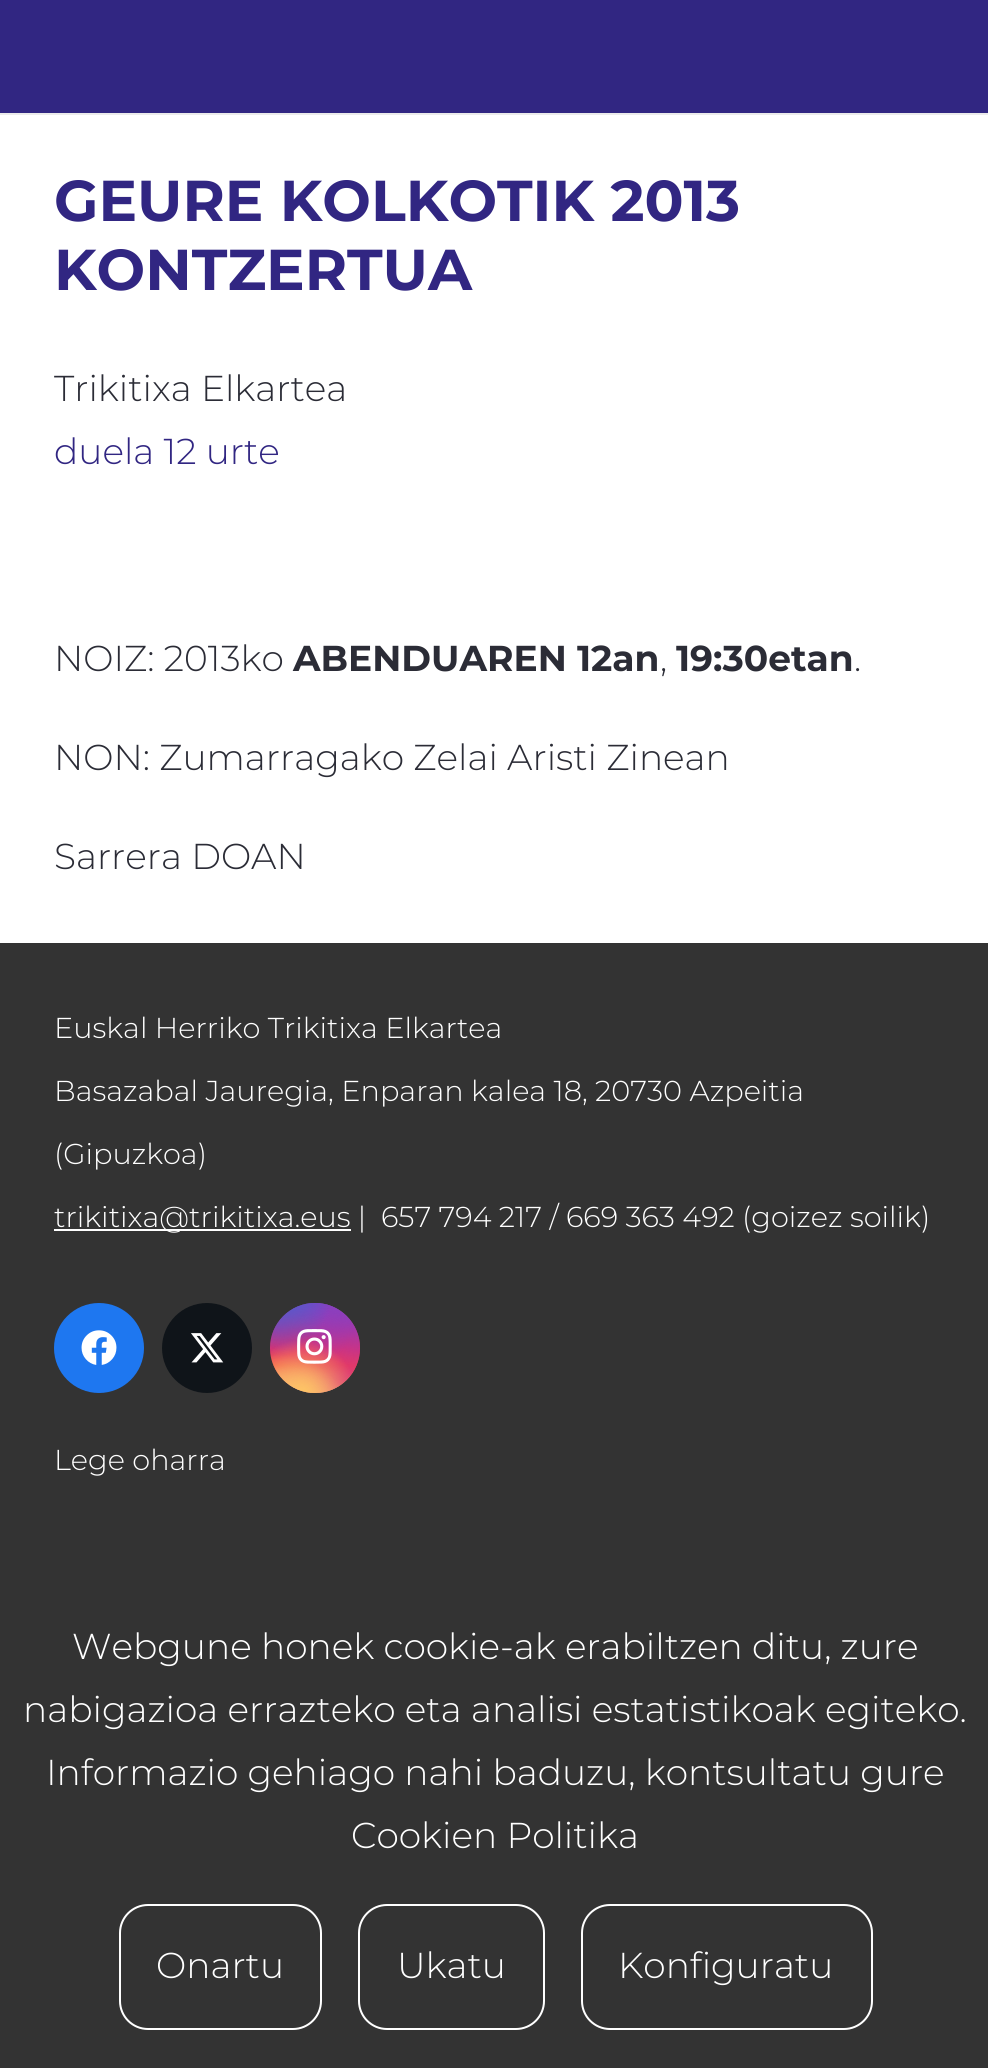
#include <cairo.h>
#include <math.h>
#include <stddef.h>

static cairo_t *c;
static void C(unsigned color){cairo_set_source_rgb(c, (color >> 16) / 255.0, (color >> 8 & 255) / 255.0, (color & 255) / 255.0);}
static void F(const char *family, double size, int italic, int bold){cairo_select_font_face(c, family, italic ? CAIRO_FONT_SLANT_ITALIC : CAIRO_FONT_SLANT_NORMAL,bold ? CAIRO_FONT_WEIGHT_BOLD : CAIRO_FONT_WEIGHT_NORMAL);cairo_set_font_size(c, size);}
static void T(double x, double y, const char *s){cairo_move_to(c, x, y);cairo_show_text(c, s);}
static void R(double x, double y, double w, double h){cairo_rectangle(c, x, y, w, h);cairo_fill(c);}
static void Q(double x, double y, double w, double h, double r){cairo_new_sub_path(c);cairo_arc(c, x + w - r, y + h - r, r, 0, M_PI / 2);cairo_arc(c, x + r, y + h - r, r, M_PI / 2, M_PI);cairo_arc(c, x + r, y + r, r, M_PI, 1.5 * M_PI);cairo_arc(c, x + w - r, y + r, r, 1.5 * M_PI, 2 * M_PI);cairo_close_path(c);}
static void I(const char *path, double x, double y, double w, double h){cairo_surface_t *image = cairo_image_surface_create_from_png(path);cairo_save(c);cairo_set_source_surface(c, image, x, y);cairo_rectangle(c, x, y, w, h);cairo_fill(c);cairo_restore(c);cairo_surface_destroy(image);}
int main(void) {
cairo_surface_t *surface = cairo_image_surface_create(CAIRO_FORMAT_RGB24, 988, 2068);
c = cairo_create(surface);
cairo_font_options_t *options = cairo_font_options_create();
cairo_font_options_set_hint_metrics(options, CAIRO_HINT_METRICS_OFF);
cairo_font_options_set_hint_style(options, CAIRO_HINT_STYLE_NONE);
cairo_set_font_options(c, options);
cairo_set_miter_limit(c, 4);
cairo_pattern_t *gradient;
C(0xffffff);
cairo_paint(c);
C(0xebebeb);
R(0,113,988,2);
C(0x312682);
R(0,0,988,113);
F("Montserrat",57.6,0,1);
T(54,221,"GEURE KOLKOTIK 2013");
T(54,290,"KONTZERTUA");
F("Montserrat Light",36,0,0);
C(0x2b2c36);
T(54,401,"Trikitixa Elkartea");
C(0x312682);
T(54,464,"duela 12 urte");
C(0x2b2c36);
T(54,671,"NOIZ: 2013ko");
F("Montserrat",36,0,1);
T(293,671,"ABENDUAREN 12an");
F("Montserrat Light",36,0,0);
T(660,671,",");
F("Montserrat",36,0,1);
T(676,671,"19:30etan");
F("Montserrat Light",36,0,0);
T(854,671,".");
T(54,770,"NON: Zumarragako Zelai Aristi Zinean");
T(54,869,"Sarrera DOAN");
C(0x333333);
R(0,943,988,1125);
F("Montserrat Light",28.8,0,0);
C(0xffffff);
T(54,1038,"Euskal Herriko Trikitixa Elkartea");
T(54,1101,"Basazabal Jauregia, Enparan kalea 18, 20730 Azpeitia");
T(54,1164,"(Gipuzkoa)");
R(54,1229,297,2);
T(54,1227,"trikitixa@trikitixa.eus |  657 794 217 / 669 363 492 (goizez soilik)");
C(0x1e77f0);
cairo_new_path(c);
cairo_arc(c,99,1348,45,0,2 * M_PI);
cairo_fill(c);
I("1.png",81,1330,36,35);
C(0x0f1419);
cairo_arc(c,207,1348,45,0,2 * M_PI);
cairo_fill(c);
I("2.png",191,1333,33,30);
gradient = cairo_pattern_create_linear(315,1303,315,1393);
cairo_pattern_add_color_stop_rgba(gradient,0,0.396,0.349,0.792,1);
cairo_pattern_add_color_stop_rgba(gradient,.3,0.737,0.192,0.561,1);
cairo_pattern_add_color_stop_rgba(gradient,.5,0.894,0.18,0.4,1);
cairo_pattern_add_color_stop_rgba(gradient,.7,0.98,0.325,0.196,1);
cairo_pattern_add_color_stop_rgba(gradient,1,1,0.863,0.502,1);
cairo_set_source(c,gradient);
cairo_pattern_destroy(gradient);
cairo_arc(c,315,1348,45,0,2 * M_PI);
cairo_fill(c);
gradient = cairo_pattern_create_radial(360,1393,0,360,1393,127);
cairo_pattern_add_color_stop_rgba(gradient,0,0.851,0.192,0.478,1);
cairo_pattern_add_color_stop_rgba(gradient,1,0.851,0.192,0.478,0);
cairo_set_source(c,gradient);
cairo_pattern_destroy(gradient);
cairo_arc(c,315,1348,45,0,2 * M_PI);
cairo_fill(c);
gradient = cairo_pattern_create_radial(0,0,0,0,0,1);
cairo_pattern_set_matrix(gradient, &(cairo_matrix_t){1.0 / 76, 0, 0, 1.0 / 153, -1.0 * 324 / 76, -1.0 * 1285 / 153});
cairo_pattern_add_color_stop_rgba(gradient,0,0.537,0.239,0.761,1);
cairo_pattern_add_color_stop_rgba(gradient,.5,0.537,0.239,0.761,0);
cairo_set_source(c,gradient);
cairo_pattern_destroy(gradient);
cairo_arc(c,315,1348,45,0,2 * M_PI);
cairo_fill(c);
gradient = cairo_pattern_create_radial(360,1303,0,360,1303,127);
cairo_pattern_add_color_stop_rgba(gradient,0,0.537,0.239,0.761,1);
cairo_pattern_add_color_stop_rgba(gradient,.5,0.537,0.239,0.761,0);
cairo_set_source(c,gradient);
cairo_pattern_destroy(gradient);
cairo_arc(c,315,1348,45,0,2 * M_PI);
cairo_fill(c);
gradient = cairo_pattern_create_radial(0,0,0,0,0,1);
cairo_pattern_set_matrix(gradient, &(cairo_matrix_t){1.0 / 102, 0, 0, 1.0 / 191, -1.0 * 288 / 102, -1.0 * 1258 / 191});
cairo_pattern_add_color_stop_rgba(gradient,0,0.322,0.345,0.812,1);
cairo_pattern_add_color_stop_rgba(gradient,.5,0.322,0.345,0.812,0);
cairo_set_source(c,gradient);
cairo_pattern_destroy(gradient);
cairo_arc(c,315,1348,45,0,2 * M_PI);
cairo_fill(c);
gradient = cairo_pattern_create_radial(0,0,0,0,0,1);
cairo_pattern_set_matrix(gradient, &(cairo_matrix_t){1.0 / 127, 0, 0, 1.0 / 159, -1.0 * 270 / 127, -1.0 * 1280 / 159});
cairo_pattern_add_color_stop_rgba(gradient,0,0.322,0.345,0.812,1);
cairo_pattern_add_color_stop_rgba(gradient,.5,0.322,0.345,0.812,0);
cairo_set_source(c,gradient);
cairo_pattern_destroy(gradient);
cairo_arc(c,315,1348,45,0,2 * M_PI);
cairo_fill(c);
gradient = cairo_pattern_create_radial(279,1429,0,279,1429,150);
cairo_pattern_add_color_stop_rgba(gradient,0,0.996,0.855,0.494,1);
cairo_pattern_add_color_stop_rgba(gradient,.5,0.996,0.855,0.494,0);
cairo_set_source(c,gradient);
cairo_pattern_destroy(gradient);
cairo_arc(c,315,1348,45,0,2 * M_PI);
cairo_fill(c);
gradient = cairo_pattern_create_radial(302,1393,0,302,1393,107);
cairo_pattern_add_color_stop_rgba(gradient,0,0.996,0.773,0.392,1);
cairo_pattern_add_color_stop_rgba(gradient,.5,0.996,0.773,0.392,0);
cairo_set_source(c,gradient);
cairo_pattern_destroy(gradient);
cairo_arc(c,315,1348,45,0,2 * M_PI);
cairo_fill(c);
I("3.png",297,1329,35,35);
C(0xffffff);
T(54,1470,"Lege oharra");
F("Montserrat Light",36,0,0);
T(72,1659,"Webgune honek cookie-ak erabiltzen ditu, zure");
T(23,1722,"nabigazioa errazteko eta analisi estatistikoak egiteko.");
T(46,1785,"Informazio gehiago nahi baduzu, kontsultatu gure");
T(351,1848,"Cookien Politika");
Q(120,1905,201,124,28);
cairo_stroke(c);
T(156,1978,"Onartu");
Q(359,1905,185,124,28);
cairo_stroke(c);
T(397,1978,"Ukatu");
Q(582,1905,290,124,28);
cairo_stroke(c);
T(618,1978,"Konfiguratu");
cairo_surface_write_to_png(surface, "o.png");
cairo_font_options_destroy(options);
cairo_destroy(c);
cairo_surface_destroy(surface);
return 0;
}
